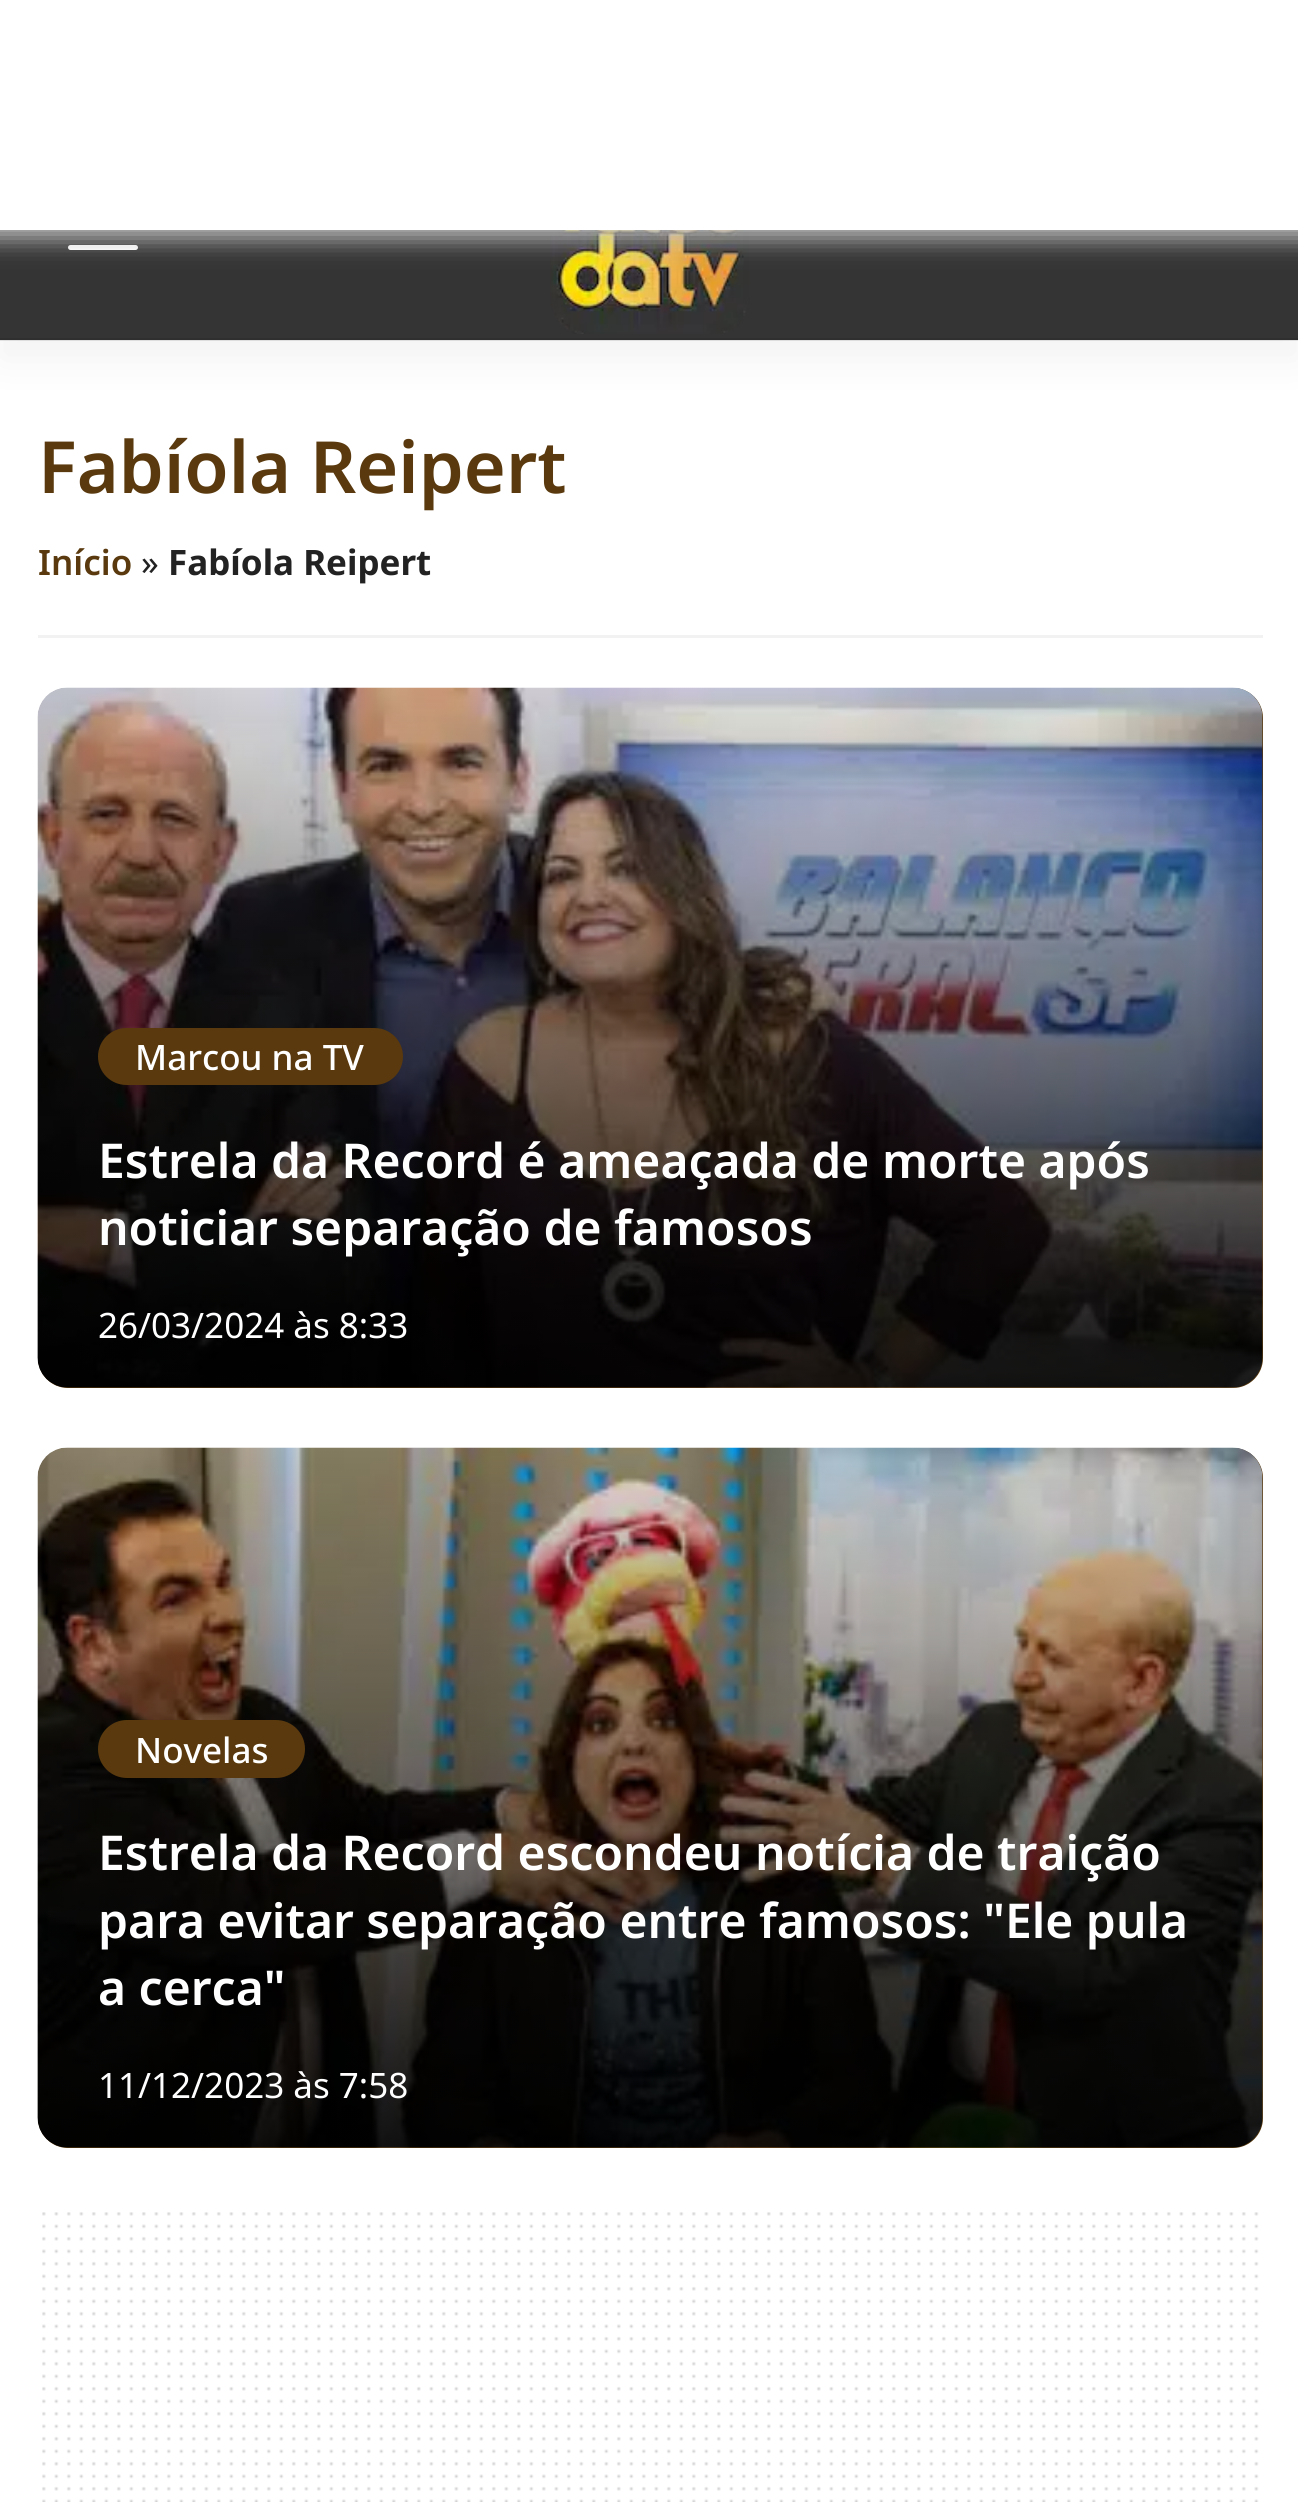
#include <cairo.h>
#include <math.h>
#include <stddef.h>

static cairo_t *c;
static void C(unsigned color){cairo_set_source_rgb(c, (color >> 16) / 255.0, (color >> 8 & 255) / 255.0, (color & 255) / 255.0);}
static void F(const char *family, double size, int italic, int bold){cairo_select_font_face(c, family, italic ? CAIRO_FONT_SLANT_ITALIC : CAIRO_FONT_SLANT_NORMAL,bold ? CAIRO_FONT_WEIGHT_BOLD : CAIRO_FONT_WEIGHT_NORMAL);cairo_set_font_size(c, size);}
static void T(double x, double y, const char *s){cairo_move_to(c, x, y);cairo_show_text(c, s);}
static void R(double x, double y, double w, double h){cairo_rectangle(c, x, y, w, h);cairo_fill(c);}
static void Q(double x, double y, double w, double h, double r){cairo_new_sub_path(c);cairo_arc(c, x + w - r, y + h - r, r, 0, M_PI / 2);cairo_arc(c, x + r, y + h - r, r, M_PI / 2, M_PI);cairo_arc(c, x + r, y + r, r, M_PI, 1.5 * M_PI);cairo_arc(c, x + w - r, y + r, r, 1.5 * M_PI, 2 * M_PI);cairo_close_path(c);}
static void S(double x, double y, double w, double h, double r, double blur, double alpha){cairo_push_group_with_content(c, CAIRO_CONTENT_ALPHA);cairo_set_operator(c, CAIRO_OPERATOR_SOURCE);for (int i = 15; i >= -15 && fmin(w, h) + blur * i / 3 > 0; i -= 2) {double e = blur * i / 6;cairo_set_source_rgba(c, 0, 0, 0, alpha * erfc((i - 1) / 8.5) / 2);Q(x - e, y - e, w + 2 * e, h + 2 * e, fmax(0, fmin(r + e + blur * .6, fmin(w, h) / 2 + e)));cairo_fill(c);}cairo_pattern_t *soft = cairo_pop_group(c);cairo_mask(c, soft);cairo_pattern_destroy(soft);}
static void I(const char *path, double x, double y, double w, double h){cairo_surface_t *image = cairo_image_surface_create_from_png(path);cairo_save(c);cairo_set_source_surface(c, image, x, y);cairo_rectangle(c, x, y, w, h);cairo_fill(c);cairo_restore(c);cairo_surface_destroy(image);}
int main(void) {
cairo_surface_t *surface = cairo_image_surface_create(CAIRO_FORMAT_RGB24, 1298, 2502);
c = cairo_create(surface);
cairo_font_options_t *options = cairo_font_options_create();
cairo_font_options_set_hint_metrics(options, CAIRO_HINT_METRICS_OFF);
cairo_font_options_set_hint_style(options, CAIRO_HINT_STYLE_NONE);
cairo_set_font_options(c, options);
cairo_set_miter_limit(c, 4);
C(0xffffff);
cairo_paint(c);
C(0x000000);
S(0,145,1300,215,0,20,.05);
C(0x353434);
R(0,230,1298,110);
C(0xffffff);
Q(68,245,70,5,2.5);
cairo_fill(c);
I("1.png",550,230,200,104);
C(0xc4c4c4);
S(-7,-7,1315,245,0,12.5,1);
C(0xffffff);
R(0,0,1298,230);
cairo_set_source_rgba(c,0,0,0,0.1);
R(0,338,1298,3);
C(0xf2f2f2);
R(38,635,1225,3);
F("Noto Sans SemiBold",72,0,0);
C(0x59390d);
T(38,493,"Fabíola Reipert");
F("Noto Sans SemiBold",35,0,0);
T(38,575,"Início");
F("Noto Sans",35,0,0);
C(0x222222);
T(141,575,"»");
F("Noto Sans",35,0,1);
T(168,575,"Fabíola Reipert");
C(0x59390d);
Q(38,688,1225,700,30);
cairo_fill(c);
I("2.png",37,687,1226,701);
Q(98,1028,305,57,28.5);
cairo_fill(c);
F("Noto Sans Medium",35,0,0);
C(0xffffff);
T(135,1070,"Marcou na TV");
F("Noto Sans SemiBold",48,0,0);
T(98,1178,"Estrela da Record é ameaçada de morte após");
T(98,1245,"noticiar separação de famosos");
F("Noto Sans",35,0,0);
T(98,1338,"26/03/2024 às 8:33");
C(0x59390d);
Q(38,1448,1225,700,30);
cairo_fill(c);
I("3.png",37,1447,1226,701);
Q(98,1720,207,58,29);
cairo_fill(c);
F("Noto Sans Medium",35,0,0);
C(0xffffff);
T(135,1763,"Novelas");
F("Noto Sans SemiBold",48,0,0);
T(98,1870,"Estrela da Record escondeu notícia de traição");
T(98,1938,"para evitar separação entre famosos: \"Ele pula");
T(98,2005,"a cerca\"");
F("Noto Sans",35,0,0);
T(98,2098,"11/12/2023 às 7:58");
I("4.png",42,2212,1217,290);
cairo_surface_write_to_png(surface, "o.png");
cairo_font_options_destroy(options);
cairo_destroy(c);
cairo_surface_destroy(surface);
return 0;
}
